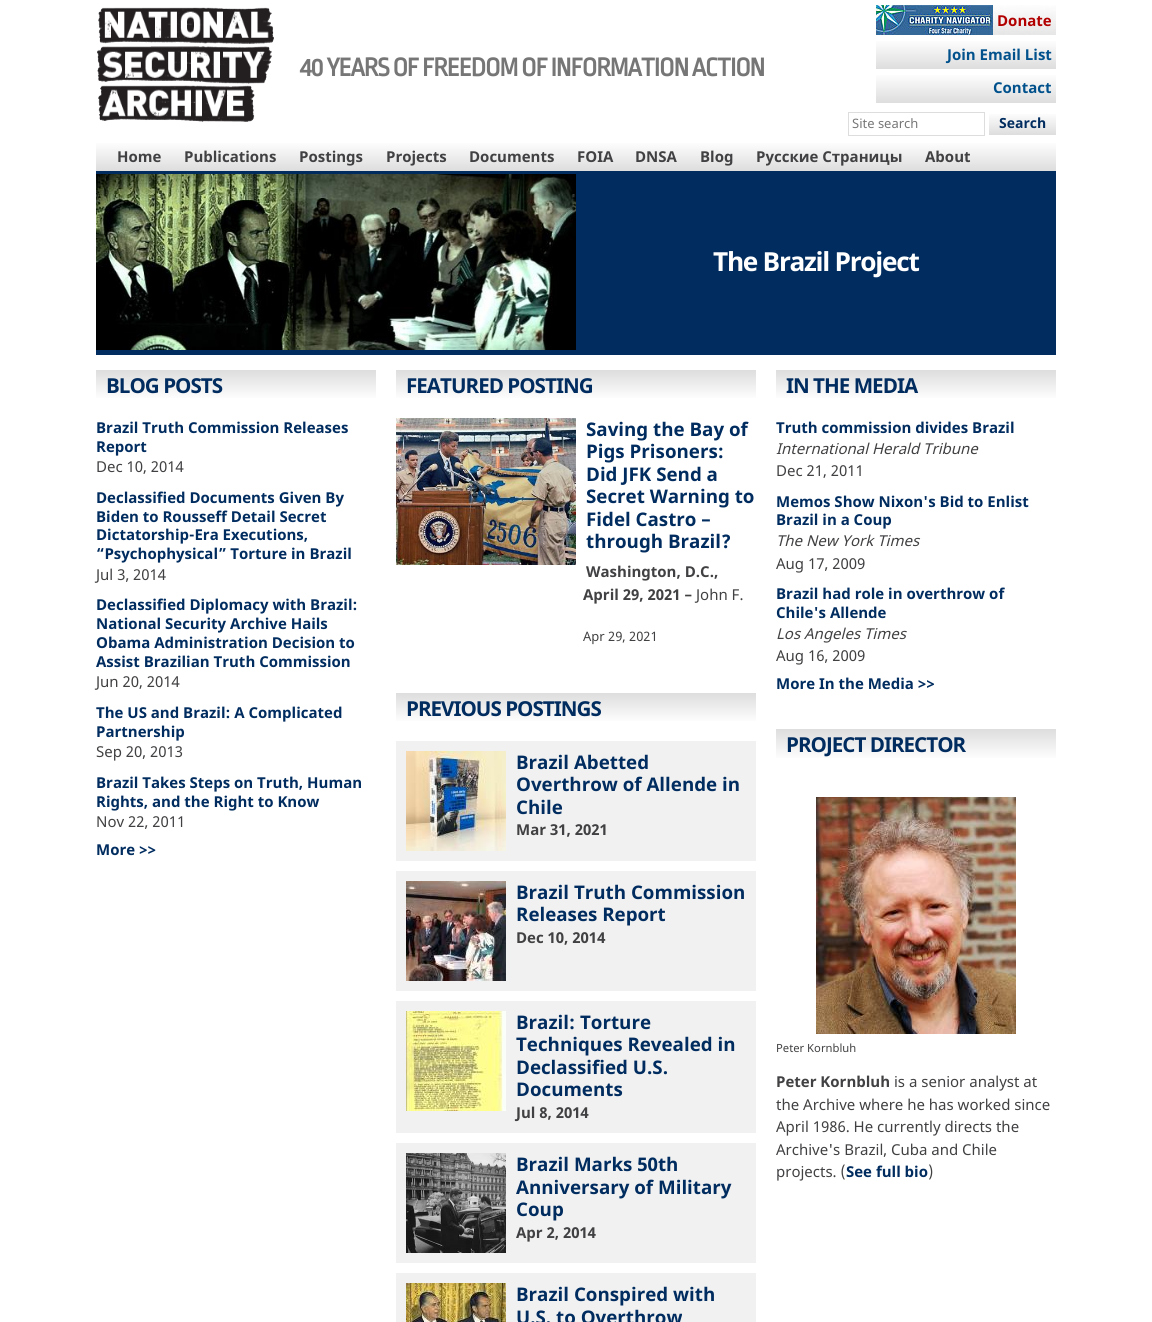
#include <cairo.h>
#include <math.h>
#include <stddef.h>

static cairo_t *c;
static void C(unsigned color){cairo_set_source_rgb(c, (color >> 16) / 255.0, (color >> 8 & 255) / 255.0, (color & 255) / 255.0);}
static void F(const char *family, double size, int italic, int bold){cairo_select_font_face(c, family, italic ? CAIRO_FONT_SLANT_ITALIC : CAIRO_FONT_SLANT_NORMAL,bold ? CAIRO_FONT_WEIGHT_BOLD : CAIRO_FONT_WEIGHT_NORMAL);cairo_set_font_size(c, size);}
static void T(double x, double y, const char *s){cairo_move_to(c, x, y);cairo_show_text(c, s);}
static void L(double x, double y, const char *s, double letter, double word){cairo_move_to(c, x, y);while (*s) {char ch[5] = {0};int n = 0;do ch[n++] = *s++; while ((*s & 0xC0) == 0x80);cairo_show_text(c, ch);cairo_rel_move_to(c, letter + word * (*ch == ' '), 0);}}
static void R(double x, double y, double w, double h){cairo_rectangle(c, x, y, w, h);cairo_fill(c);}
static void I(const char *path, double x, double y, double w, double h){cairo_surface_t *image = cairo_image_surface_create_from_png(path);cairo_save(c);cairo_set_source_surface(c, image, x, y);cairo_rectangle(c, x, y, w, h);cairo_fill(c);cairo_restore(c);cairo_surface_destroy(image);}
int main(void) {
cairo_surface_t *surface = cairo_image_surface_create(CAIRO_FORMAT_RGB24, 1152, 1322);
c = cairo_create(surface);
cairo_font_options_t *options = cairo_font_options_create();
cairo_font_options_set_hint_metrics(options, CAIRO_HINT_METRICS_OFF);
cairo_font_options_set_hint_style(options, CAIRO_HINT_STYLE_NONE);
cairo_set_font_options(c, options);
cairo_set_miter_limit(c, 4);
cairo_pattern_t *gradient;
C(0xffffff);
cairo_paint(c);
I("1.png",97,7,177,115);
F("Ropa Sans",27,0,1);
C(0x767676);
L(300,76,"40 YEARS OF FREEDOM OF INFORMATION ACTION",-1.1,0);
I("2.png",876,5,180,30);
F("Noto Sans",15,0,1);
C(0xb20000);
T(997,26,"Donate");
gradient = cairo_pattern_create_linear(966,39,966,69);
cairo_pattern_add_color_stop_rgba(gradient,0,1,1,1,1);
cairo_pattern_add_color_stop_rgba(gradient,1,0.867,0.867,0.867,1);
cairo_set_source(c,gradient);
cairo_pattern_destroy(gradient);
R(876,41,180,28);
C(0x00518c);
T(947,60,"Join Email List");
gradient = cairo_pattern_create_linear(966,73,966,103);
cairo_pattern_add_color_stop_rgba(gradient,0,1,1,1,1);
cairo_pattern_add_color_stop_rgba(gradient,1,0.867,0.867,0.867,1);
cairo_set_source(c,gradient);
cairo_pattern_destroy(gradient);
R(876,75,180,28);
C(0x00518c);
T(993,93,"Contact");
cairo_rectangle(c,848.5,112.5,136,23);
C(0xdddddd);
cairo_set_line_width(c,1);
cairo_stroke(c);
F("Noto Sans",13,0,0);
C(0x767676);
T(852,128,"Site search");
gradient = cairo_pattern_create_linear(1023,112,1023,135);
cairo_pattern_add_color_stop_rgba(gradient,0,1,1,1,1);
cairo_pattern_add_color_stop_rgba(gradient,1,0.867,0.867,0.867,1);
cairo_set_source(c,gradient);
cairo_pattern_destroy(gradient);
R(989,114,67,21);
F("Noto Sans",14,0,1);
C(0x002c5f);
T(999,128,"Search");
gradient = cairo_pattern_create_linear(576,171,576,141);
cairo_pattern_add_color_stop_rgba(gradient,0,0.867,0.867,0.867,1);
cairo_pattern_add_color_stop_rgba(gradient,1,1,1,1,1);
cairo_set_source(c,gradient);
cairo_pattern_destroy(gradient);
R(96,143,960,28);
F("Noto Sans",15,0,1);
C(0x414042);
T(117,162,"Home");
T(184,162,"Publications");
T(299,162,"Postings");
T(386,162,"Projects");
T(469,162,"Documents");
T(577,162,"FOIA");
T(635,162,"DNSA");
T(700,162,"Blog");
T(756,162,"Русские Страницы");
T(925,162,"About");
C(0x002c5f);
R(96,171,960,184);
I("3.png",96,174,480,176);
F("Noto Sans",26.25,0,1);
C(0xffffff);
L(713,271,"The Brazil Project",-1.3,0);
gradient = cairo_pattern_create_linear(236,370,236,400);
cairo_pattern_add_color_stop_rgba(gradient,0,0.867,0.867,0.867,1);
cairo_pattern_add_color_stop_rgba(gradient,1,1,1,1,1);
cairo_set_source(c,gradient);
cairo_pattern_destroy(gradient);
R(96,370,280,28);
F("Noto Sans",20.6,0,1);
C(0x002c5f);
L(106,393,"BLOG POSTS",-1,0);
F("Noto Sans",15,0,1);
T(96,433,"Brazil Truth Commission Releases");
T(96,452,"Report");
F("Noto Sans",15,0,0);
C(0x414042);
T(96,472,"Dec 10, 2014");
F("Noto Sans",15,0,1);
C(0x002c5f);
T(96,503,"Declassified Documents Given By");
T(96,522,"Biden to Rousseff Detail Secret");
T(96,540,"Dictatorship-Era Executions,");
T(96,559,"“Psychophysical” Torture in Brazil");
F("Noto Sans",15,0,0);
C(0x414042);
T(96,580,"Jul 3, 2014");
F("Noto Sans",15,0,1);
C(0x002c5f);
T(96,610,"Declassified Diplomacy with Brazil:");
T(96,629,"National Security Archive Hails");
T(96,648,"Obama Administration Decision to");
T(96,667,"Assist Brazilian Truth Commission");
F("Noto Sans",15,0,0);
C(0x414042);
T(96,687,"Jun 20, 2014");
F("Noto Sans",15,0,1);
C(0x002c5f);
T(96,718,"The US and Brazil: A Complicated");
T(96,737,"Partnership");
F("Noto Sans",15,0,0);
C(0x414042);
T(96,757,"Sep 20, 2013");
F("Noto Sans",15,0,1);
C(0x002c5f);
T(96,788,"Brazil Takes Steps on Truth, Human");
T(96,807,"Rights, and the Right to Know");
F("Noto Sans",15,0,0);
C(0x414042);
T(96,827,"Nov 22, 2011");
F("Noto Sans",15,0,1);
C(0x002c5f);
T(96,855,"More >>");
gradient = cairo_pattern_create_linear(576,370,576,400);
cairo_pattern_add_color_stop_rgba(gradient,0,0.867,0.867,0.867,1);
cairo_pattern_add_color_stop_rgba(gradient,1,1,1,1,1);
cairo_set_source(c,gradient);
cairo_pattern_destroy(gradient);
R(396,370,360,28);
F("Noto Sans",20.6,0,1);
C(0x002c5f);
L(406,393,"FEATURED POSTING",-1,0);
I("4.png",396,418,180,147);
F("Noto Sans",18.75,0,1);
T(586,436,"Saving the Bay of");
T(586,458,"Pigs Prisoners:");
T(586,481,"Did JFK Send a");
T(586,503,"Secret Warning to");
T(586,526,"Fidel Castro –");
T(586,548,"through Brazil?");
F("Noto Sans",15,0,1);
C(0x414042);
T(586,577,"Washington, D.C.,");
T(583,600,"April 29, 2021 –");
F("Noto Sans",15,0,0);
T(696,600,"John F.");
F("Noto Sans",13,0,0);
T(583,641,"Apr 29, 2021");
gradient = cairo_pattern_create_linear(576,693,576,723);
cairo_pattern_add_color_stop_rgba(gradient,0,0.867,0.867,0.867,1);
cairo_pattern_add_color_stop_rgba(gradient,1,1,1,1,1);
cairo_set_source(c,gradient);
cairo_pattern_destroy(gradient);
R(396,693,360,28);
F("Noto Sans",20.6,0,1);
C(0x002c5f);
L(406,716,"PREVIOUS POSTINGS",-1,0);
C(0xf1f1f1);
R(396,741,360,120);
I("5.png",406,751,100,100);
F("Noto Sans",18.75,0,1);
C(0x002c5f);
T(516,769,"Brazil Abetted");
T(516,791,"Overthrow of Allende in");
T(516,814,"Chile");
F("Noto Sans",15,0,1);
C(0x414042);
T(516,835,"Mar 31, 2021");
C(0xf1f1f1);
R(396,871,360,120);
I("6.png",406,881,100,100);
F("Noto Sans",18.75,0,1);
C(0x002c5f);
T(516,899,"Brazil Truth Commission");
T(516,921,"Releases Report");
F("Noto Sans",15,0,1);
C(0x414042);
T(516,943,"Dec 10, 2014");
C(0xf1f1f1);
R(396,1001,360,132);
I("7.png",406,1011,100,100);
F("Noto Sans",18.75,0,1);
C(0x002c5f);
T(516,1029,"Brazil: Torture");
T(516,1051,"Techniques Revealed in");
T(516,1074,"Declassified U.S.");
T(516,1096,"Documents");
F("Noto Sans",15,0,1);
C(0x414042);
T(516,1118,"Jul 8, 2014");
C(0xf1f1f1);
R(396,1143,360,120);
I("8.png",406,1153,100,100);
F("Noto Sans",18.75,0,1);
C(0x002c5f);
T(516,1171,"Brazil Marks 50th");
T(516,1194,"Anniversary of Military");
T(516,1216,"Coup");
F("Noto Sans",15,0,1);
C(0x414042);
T(516,1238,"Apr 2, 2014");
C(0xf1f1f1);
R(396,1273,360,49);
I("9.png",406,1283,100,39);
F("Noto Sans",18.75,0,1);
C(0x002c5f);
T(516,1301,"Brazil Conspired with");
T(516,1324,"U.S. to Overthrow");
gradient = cairo_pattern_create_linear(916,370,916,400);
cairo_pattern_add_color_stop_rgba(gradient,0,0.867,0.867,0.867,1);
cairo_pattern_add_color_stop_rgba(gradient,1,1,1,1,1);
cairo_set_source(c,gradient);
cairo_pattern_destroy(gradient);
R(776,370,280,28);
F("Noto Sans",20.6,0,1);
C(0x002c5f);
L(786,393,"IN THE MEDIA",-1,0);
F("Noto Sans",15,0,1);
T(776,433,"Truth commission divides Brazil");
F("Noto Sans",15,1,0);
C(0x414042);
T(776,454,"International Herald Tribune");
F("Noto Sans",15,0,0);
T(776,476,"Dec 21, 2011");
F("Noto Sans",15,0,1);
C(0x002c5f);
T(776,507,"Memos Show Nixon's Bid to Enlist");
T(776,525,"Brazil in a Coup");
F("Noto Sans",15,1,0);
C(0x414042);
T(776,546,"The New York Times");
F("Noto Sans",15,0,0);
T(776,569,"Aug 17, 2009");
F("Noto Sans",15,0,1);
C(0x002c5f);
T(776,599,"Brazil had role in overthrow of");
T(776,618,"Chile's Allende");
F("Noto Sans",15,1,0);
C(0x414042);
T(776,639,"Los Angeles Times");
F("Noto Sans",15,0,0);
T(776,661,"Aug 16, 2009");
F("Noto Sans",15,0,1);
C(0x002c5f);
T(776,689,"More In the Media >>");
gradient = cairo_pattern_create_linear(916,729,916,760);
cairo_pattern_add_color_stop_rgba(gradient,0,0.867,0.867,0.867,1);
cairo_pattern_add_color_stop_rgba(gradient,1,1,1,1,1);
cairo_set_source(c,gradient);
cairo_pattern_destroy(gradient);
R(776,729,280,29);
F("Noto Sans",20.6,0,1);
C(0x002c5f);
L(786,752,"PROJECT DIRECTOR",-1,0);
I("10.png",816,797,200,237);
F("Noto Sans",11.25,0,0);
C(0x414042);
T(776,1052,"Peter Kornbluh");
F("Noto Sans",15,0,1);
T(776,1087,"Peter Kornbluh");
F("Noto Sans",15,0,0);
T(894,1087,"is a senior analyst at");
T(776,1110,"the Archive where he has worked since");
T(776,1132,"April 1986. He currently directs the");
T(776,1155,"Archive's Brazil, Cuba and Chile");
T(776,1177,"projects. (");
F("Noto Sans",15,0,1);
C(0x002c5f);
T(846,1177,"See full bio");
F("Noto Sans",15,0,0);
C(0x414042);
T(928,1177,")");
cairo_surface_write_to_png(surface, "o.png");
cairo_font_options_destroy(options);
cairo_destroy(c);
cairo_surface_destroy(surface);
return 0;
}
